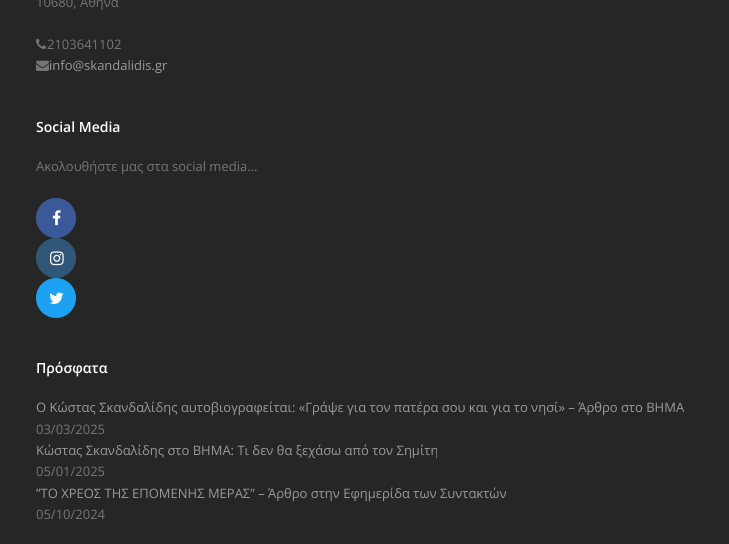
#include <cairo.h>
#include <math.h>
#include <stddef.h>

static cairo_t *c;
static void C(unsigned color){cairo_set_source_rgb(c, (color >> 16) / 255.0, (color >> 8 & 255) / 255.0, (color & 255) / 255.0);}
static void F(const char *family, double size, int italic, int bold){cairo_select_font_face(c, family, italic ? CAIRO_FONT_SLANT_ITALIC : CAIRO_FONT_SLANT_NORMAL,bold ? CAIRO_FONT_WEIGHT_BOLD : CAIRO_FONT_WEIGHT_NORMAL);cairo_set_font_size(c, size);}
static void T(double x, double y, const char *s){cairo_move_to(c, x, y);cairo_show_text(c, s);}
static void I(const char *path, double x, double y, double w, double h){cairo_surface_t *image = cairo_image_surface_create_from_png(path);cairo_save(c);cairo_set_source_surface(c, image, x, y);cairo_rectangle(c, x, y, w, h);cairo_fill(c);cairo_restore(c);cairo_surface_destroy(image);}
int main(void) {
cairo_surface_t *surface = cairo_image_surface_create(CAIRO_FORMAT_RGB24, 729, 544);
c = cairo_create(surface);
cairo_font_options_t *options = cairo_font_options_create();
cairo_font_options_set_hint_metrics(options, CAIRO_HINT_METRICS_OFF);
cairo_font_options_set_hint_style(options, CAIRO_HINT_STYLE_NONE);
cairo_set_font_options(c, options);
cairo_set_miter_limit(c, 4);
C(0x262626);
cairo_paint(c);
F("Open Sans",13,0,0);
C(0x757575);
T(36,7,"10680, Αθήνα");
I("1.png",36,38,11,11);
T(47,49,"2103641102");
I("2.png",36,60,13,11);
C(0x999999);
T(49,70,"info@skandalidis.gr");
F("Open Sans SemiBold",14,0,0);
C(0xffffff);
T(36,132,"Social Media");
F("Open Sans",13,0,0);
C(0x757575);
T(36,171,"Ακολουθήστε μας στα social media...");
C(0x3b5998);
cairo_new_path(c);
cairo_arc(c,56,218,20,0,2 * M_PI);
cairo_fill(c);
I("3.png",52,210,9,16);
C(0x305777);
cairo_arc(c,56,258,20,0,2 * M_PI);
cairo_fill(c);
I("4.png",50,251,14,15);
C(0x1da1f2);
cairo_arc(c,56,298,20,0,2 * M_PI);
cairo_fill(c);
I("5.png",49,292,15,12);
F("Open Sans SemiBold",14,0,0);
C(0xffffff);
T(36,373,"Πρόσφατα");
F("Open Sans",13,0,0);
C(0x999999);
T(36,412,"Ο Κώστας Σκανδαλίδης αυτοβιογραφείται: «Γράψε για τον πατέρα σου και για το νησί» – Άρθρο στο ΒΗΜΑ");
C(0x757575);
T(36,434,"03/03/2025");
C(0x999999);
T(36,455,"Κώστας Σκανδαλίδης στο ΒΗΜΑ: Τι δεν θα ξεχάσω από τον Σημίτη");
C(0x757575);
T(36,476,"05/01/2025");
C(0x999999);
T(36,498,"”ΤΟ ΧΡΕΟΣ ΤΗΣ ΕΠΟΜΕΝΗΣ ΜΕΡΑΣ” – Άρθρο στην Εφημερίδα των Συντακτών");
C(0x757575);
T(36,519,"05/10/2024");
cairo_surface_write_to_png(surface, "o.png");
cairo_font_options_destroy(options);
cairo_destroy(c);
cairo_surface_destroy(surface);
return 0;
}
